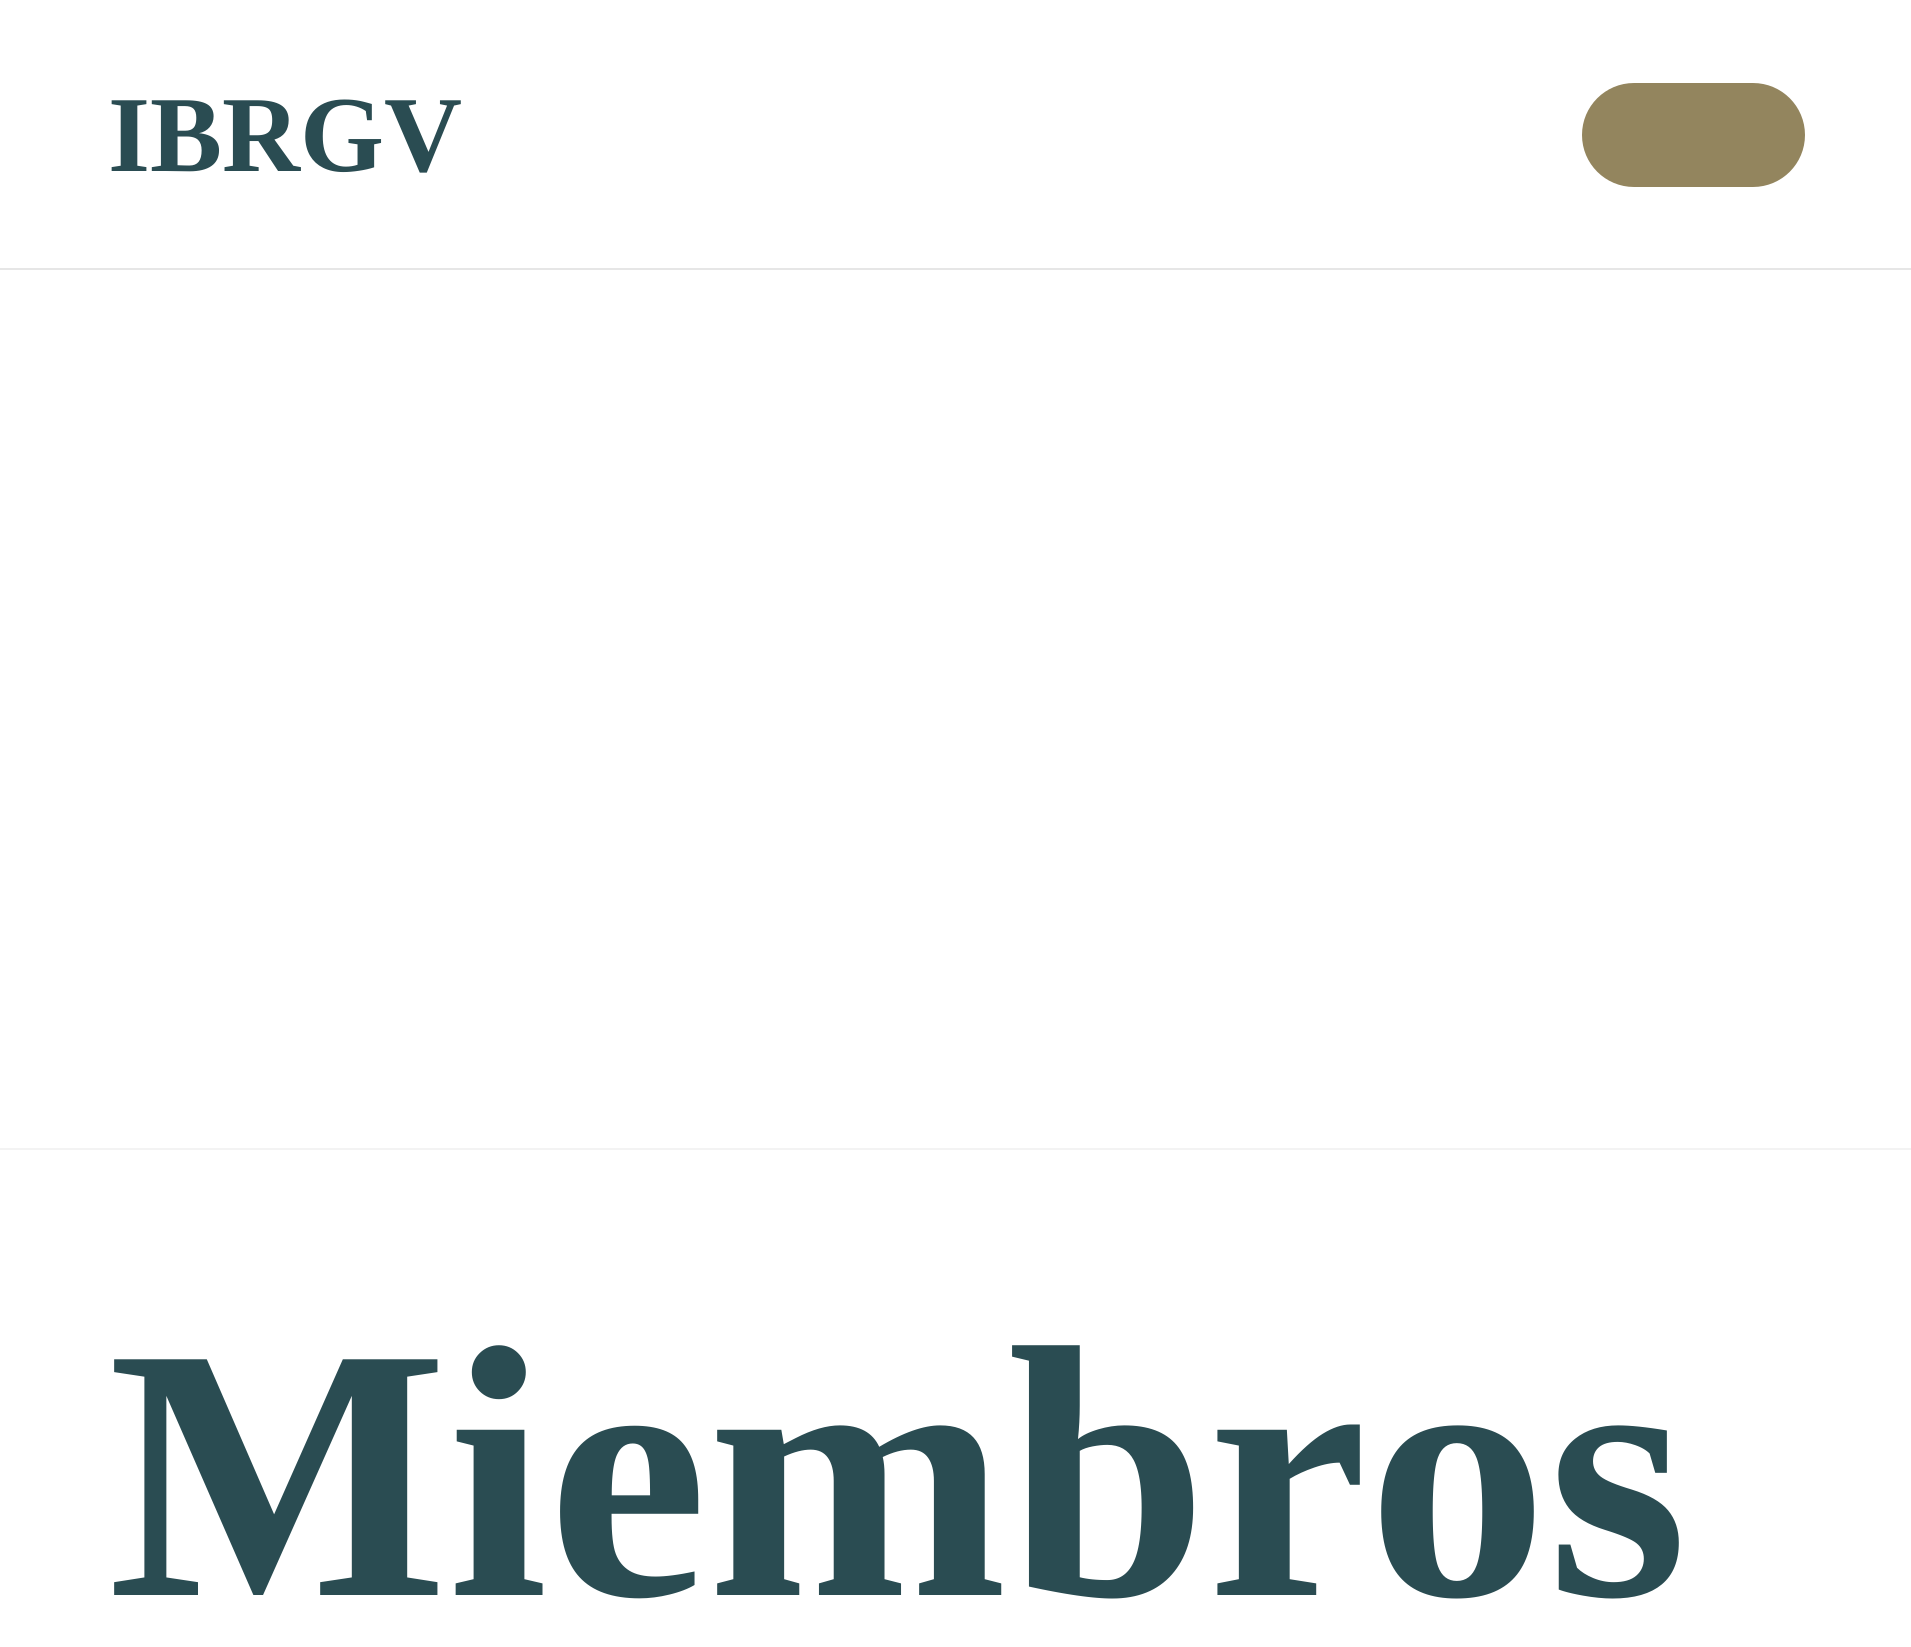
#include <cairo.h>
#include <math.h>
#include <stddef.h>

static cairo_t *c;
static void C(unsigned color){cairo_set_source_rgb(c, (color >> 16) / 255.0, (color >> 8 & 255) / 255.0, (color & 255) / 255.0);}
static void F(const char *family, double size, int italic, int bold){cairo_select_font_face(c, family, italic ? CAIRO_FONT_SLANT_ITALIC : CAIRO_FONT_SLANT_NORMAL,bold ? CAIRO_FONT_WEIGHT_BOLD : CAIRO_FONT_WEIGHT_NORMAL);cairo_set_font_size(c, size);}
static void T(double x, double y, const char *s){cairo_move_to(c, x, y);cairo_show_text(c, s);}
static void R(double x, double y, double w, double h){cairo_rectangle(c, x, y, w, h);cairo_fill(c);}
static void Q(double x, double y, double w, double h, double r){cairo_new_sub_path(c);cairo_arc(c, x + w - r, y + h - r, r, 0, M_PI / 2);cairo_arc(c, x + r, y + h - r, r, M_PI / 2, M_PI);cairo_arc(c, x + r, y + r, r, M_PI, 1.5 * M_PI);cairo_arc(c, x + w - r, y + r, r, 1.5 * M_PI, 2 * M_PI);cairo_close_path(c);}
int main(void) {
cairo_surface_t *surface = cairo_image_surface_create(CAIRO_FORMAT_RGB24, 1911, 1647);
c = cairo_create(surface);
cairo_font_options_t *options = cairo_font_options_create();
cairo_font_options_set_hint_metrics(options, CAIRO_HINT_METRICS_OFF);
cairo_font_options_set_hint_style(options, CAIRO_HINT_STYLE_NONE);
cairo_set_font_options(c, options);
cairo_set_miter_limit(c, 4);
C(0xffffff);
cairo_paint(c);
C(0xe6e6e6);
R(0,268,1911,2);
F("Liberation Serif",108,0,1);
C(0x2a4c52);
T(108,171,"IBRGV");
C(0x93855e);
Q(1582,83,223,104,52);
cairo_fill(c);
C(0xf3f3f3);
R(0,1148,1911,2);
F("Liberation Serif",360,0,1);
C(0x2a4c52);
T(108,1595,"Miembros");
cairo_surface_write_to_png(surface, "o.png");
cairo_font_options_destroy(options);
cairo_destroy(c);
cairo_surface_destroy(surface);
return 0;
}
